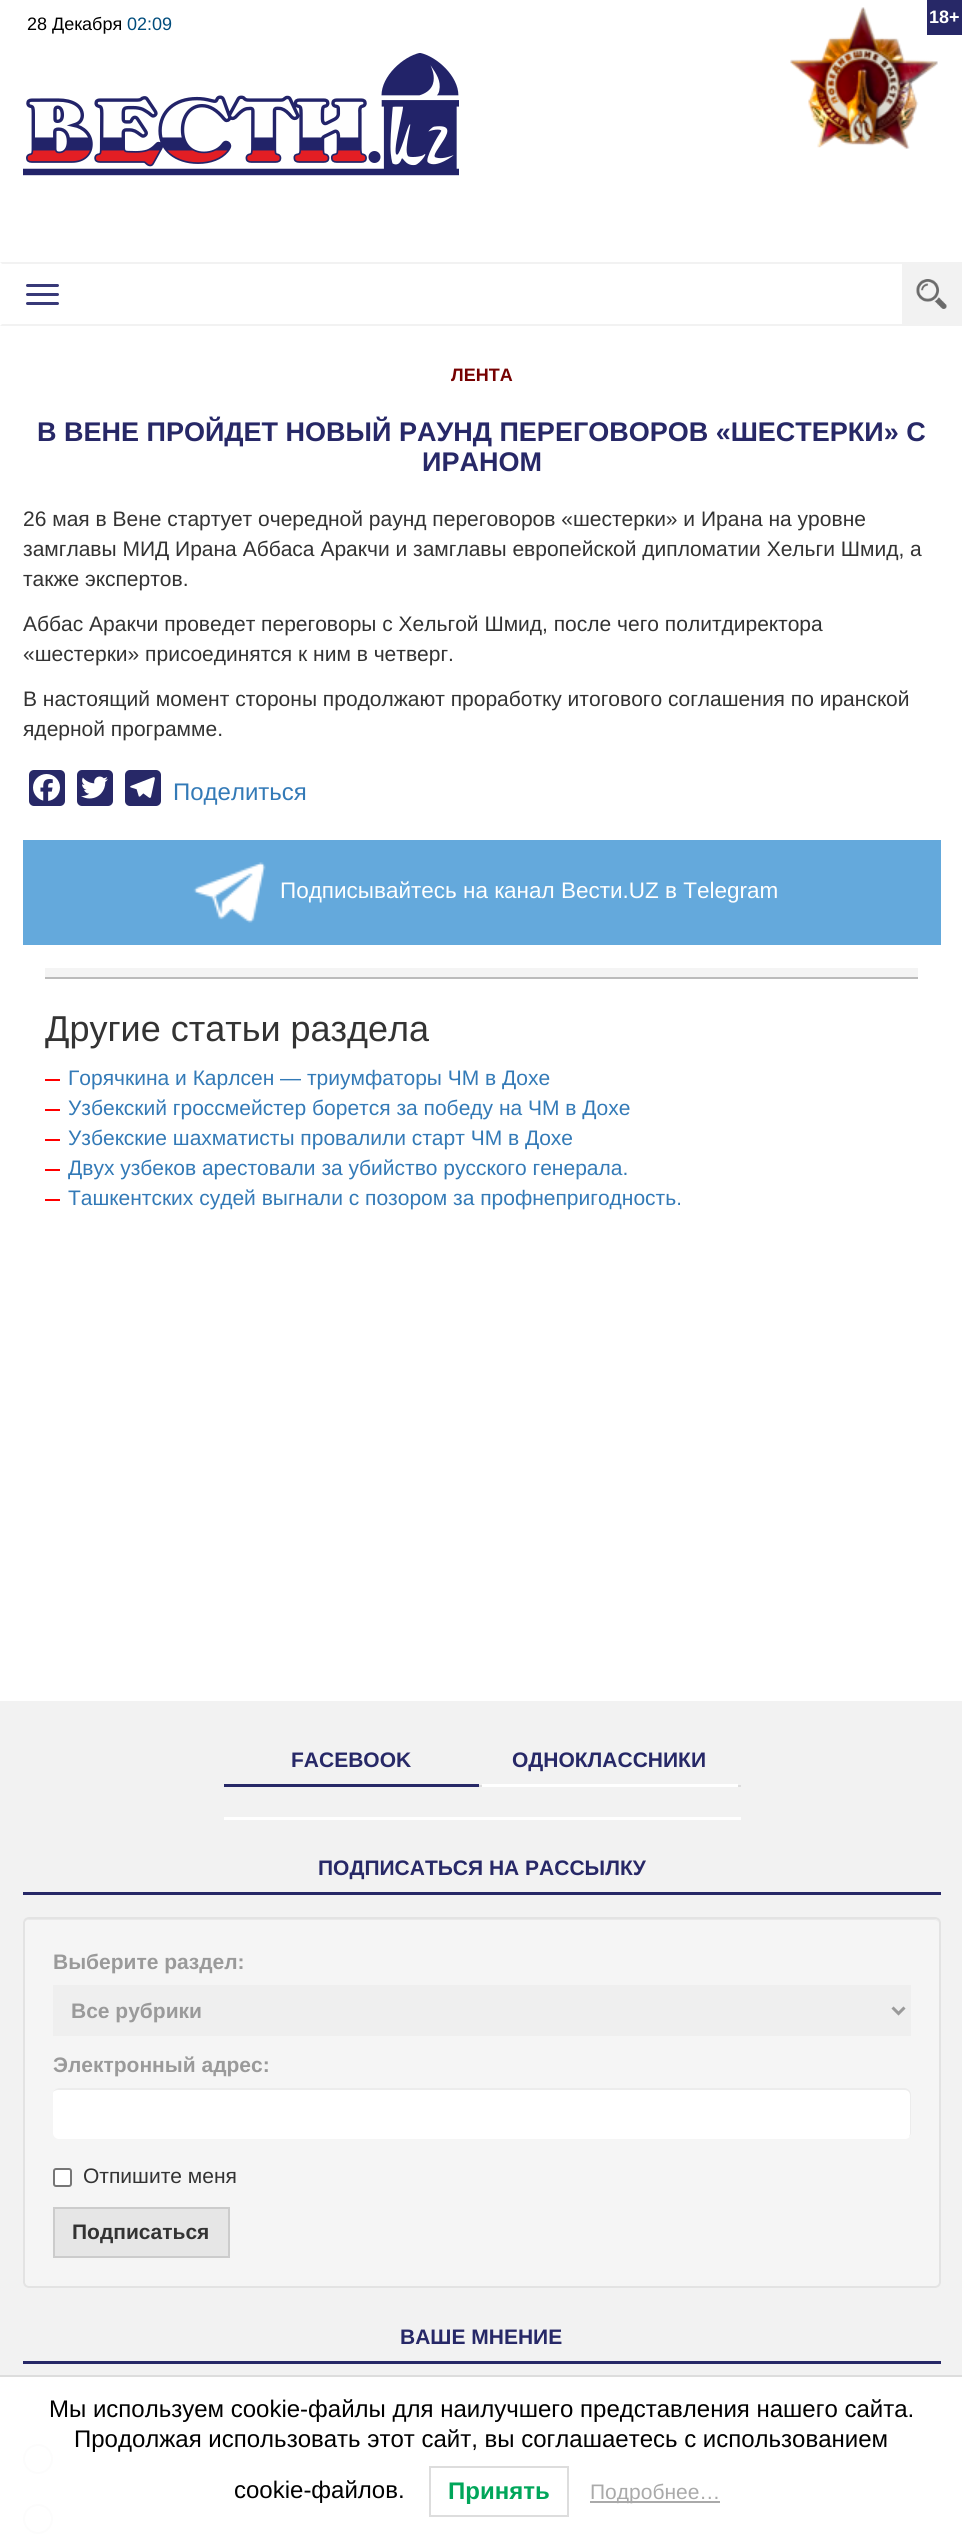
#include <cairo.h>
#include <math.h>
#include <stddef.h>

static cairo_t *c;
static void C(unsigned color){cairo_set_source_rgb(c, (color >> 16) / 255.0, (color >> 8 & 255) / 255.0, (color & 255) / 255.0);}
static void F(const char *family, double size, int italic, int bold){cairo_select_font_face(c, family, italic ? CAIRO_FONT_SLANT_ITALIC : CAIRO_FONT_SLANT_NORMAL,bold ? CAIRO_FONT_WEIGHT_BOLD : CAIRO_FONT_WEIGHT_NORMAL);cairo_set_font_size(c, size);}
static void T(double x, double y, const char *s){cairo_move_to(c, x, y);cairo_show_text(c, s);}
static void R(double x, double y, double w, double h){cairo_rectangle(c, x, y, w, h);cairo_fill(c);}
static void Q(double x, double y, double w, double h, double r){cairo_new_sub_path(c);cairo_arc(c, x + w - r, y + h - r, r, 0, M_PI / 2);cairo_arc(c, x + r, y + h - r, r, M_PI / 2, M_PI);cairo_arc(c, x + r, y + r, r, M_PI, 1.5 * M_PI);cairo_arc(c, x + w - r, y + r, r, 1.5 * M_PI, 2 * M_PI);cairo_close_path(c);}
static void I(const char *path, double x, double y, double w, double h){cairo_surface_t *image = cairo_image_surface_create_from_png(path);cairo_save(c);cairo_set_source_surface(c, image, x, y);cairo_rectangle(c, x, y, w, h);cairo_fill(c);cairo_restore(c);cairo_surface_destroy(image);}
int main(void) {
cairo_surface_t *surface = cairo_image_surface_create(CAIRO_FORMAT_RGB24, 962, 2546);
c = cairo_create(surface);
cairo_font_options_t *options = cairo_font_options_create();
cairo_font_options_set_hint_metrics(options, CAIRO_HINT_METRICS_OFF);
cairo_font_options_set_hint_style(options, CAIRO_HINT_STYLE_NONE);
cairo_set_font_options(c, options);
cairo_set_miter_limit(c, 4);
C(0xffffff);
cairo_paint(c);
F("Liberation Sans",18,0,0);
C(0x000000);
T(27,30,"28 Декабря");
C(0x004c7c);
T(127,30,"02:09");
I("1.png",23,53,436,123);
C(0x272867);
R(927,0,35,35);
F("Liberation Sans",18,0,1);
C(0xffffff);
T(929,23,"18+");
I("2.png",790,7,148,142);
C(0xf2f2f2);
cairo_new_path(c);
cairo_move_to(c,0,262);
cairo_line_to(c,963,262);
cairo_line_to(c,962,264);
cairo_line_to(c,2,264);
cairo_close_path(c);
cairo_fill(c);
cairo_new_path(c);
cairo_move_to(c,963,326);
cairo_line_to(c,0,326);
cairo_line_to(c,2,324);
cairo_line_to(c,962,324);
cairo_close_path(c);
cairo_fill(c);
C(0x383978);
Q(26,284,33,3,1.5);
cairo_fill(c);
Q(26,293,33,3,1.5);
cairo_fill(c);
Q(26,302,33,3,1.5);
cairo_fill(c);
C(0xf2f2f2);
R(902,264,60,60);
I("3.png",916,279,31,30);
C(0x760101);
T(451,381,"ЛЕНТА");
F("Liberation Sans",27,0,1);
C(0x272867);
T(37,441,"В ВЕНЕ ПРОЙДЕТ НОВЫЙ РАУНД ПЕРЕГОВОРОВ «ШЕСТЕРКИ» С");
T(422,471,"ИРАНОМ");
F("Liberation Sans",21,0,0);
C(0x333333);
T(23,526,"26 мая в Вене стартует очередной раунд переговоров «шестерки» и Ирана на уровне");
T(23,556,"замглавы МИД Ирана Аббаса Аракчи и замглавы европейской дипломатии Хельги Шмид, а");
T(23,586,"также экспертов.");
T(23,631,"Аббас Аракчи проведет переговоры с Хельгой Шмид, после чего политдиректора");
T(23,661,"«шестерки» присоединятся к ним в четверг.");
T(23,706,"В настоящий момент стороны продолжают проработку итогового соглашения по иранской");
T(23,736,"ядерной программе.");
C(0x272867);
Q(29,770,36,36,5);
cairo_fill(c);
I("4.png",33,774,27,27);
Q(77,770,36,36,5);
cairo_fill(c);
I("5.png",81,776,27,23);
Q(125,770,36,36,5);
cairo_fill(c);
I("6.png",130,777,25,21);
F("Liberation Sans",24,0,0);
C(0x337ab7);
T(173,800,"Поделиться");
C(0x64a9dc);
R(23,840,918,105);
I("7.png",193,862,73,61);
F("Liberation Sans",22.5,0,0);
C(0xffffff);
T(280,898,"Подписывайтесь на канал Вести.UZ в Telegram");
C(0xf4f4f4);
R(45,968,873,9);
C(0xbbbbbb);
R(45,977,873,2);
F("Liberation Sans",36,0,0);
C(0x333333);
T(45,1041,"Другие статьи раздела");
C(0xff0000);
R(45,1079,15,2);
F("Liberation Sans",21,0,0);
C(0x337ab7);
T(68,1085,"Горячкина и Карлсен — триумфаторы ЧМ в Дохе");
C(0xff0000);
R(45,1109,15,2);
C(0x337ab7);
T(68,1115,"Узбекский гроссмейстер борется за победу на ЧМ в Дохе");
C(0xff0000);
R(45,1139,15,2);
C(0x337ab7);
T(68,1145,"Узбекские шахматисты провалили старт ЧМ в Дохе");
C(0xff0000);
R(45,1169,15,2);
C(0x337ab7);
T(68,1175,"Двух узбеков арестовали за убийство русского генерала.");
C(0xff0000);
R(45,1199,15,2);
C(0x337ab7);
T(68,1205,"Ташкентских судей выгнали с позором за профнепригодность.");
C(0xf2f2f2);
R(0,1701,962,674);
C(0xdddddd);
R(479,1785,262,2);
C(0x272867);
R(224,1784,255,3);
F("Liberation Sans",21,0,1);
T(291,1767,"FACEBOOK");
C(0xffffff);
R(482,1784,256,3);
C(0x272867);
T(512,1767,"ОДНОКЛАССНИКИ");
C(0xffffff);
R(224,1817,517,3);
C(0x272867);
T(318,1875,"ПОДПИСАТЬСЯ НА РАССЫЛКУ");
R(23,1892,918,3);
C(0xf5f5f5);
Q(23,1917,918,371,6);
cairo_fill(c);
C(0xe9e9e9);
cairo_new_path(c);
cairo_move_to(c,28,1920);
cairo_line_to(c,934,1920);
cairo_curve_to(c,937,1920,939,1922,939,1924);
cairo_curve_to(c,939,1921,937,1919,934,1919);
cairo_line_to(c,29,1919);
cairo_curve_to(c,26,1919,24,1921,24,1924);
cairo_curve_to(c,24,1922,26,1920,28,1920);
cairo_close_path(c);
cairo_fill(c);
Q(24,1918,916,369,5);
C(0xe3e3e3);
cairo_stroke(c);
C(0x9a9a9a);
T(53,1969,"Выберите раздел:");
C(0xefefef);
R(53,1985,858,51);
cairo_new_path(c);
cairo_move_to(c,892.5,2007.5);
cairo_line_to(c,898.5,2013.5);
cairo_line_to(c,904.5,2007.5);
C(0x9a9a9a);
cairo_set_line_width(c,3);
cairo_stroke(c);
T(71,2018,"Все рубрики");
T(53,2072,"Электронный адрес:");
C(0xffffff);
Q(53,2088,858,51,6);
cairo_fill(c);
C(0xececec);
cairo_new_path(c);
cairo_move_to(c,58,2090);
cairo_line_to(c,904,2090);
cairo_curve_to(c,908,2090,910,2092,910,2096);
cairo_line_to(c,910,2134);
cairo_line_to(c,909,2137);
cairo_curve_to(c,910,2136,911,2135,911,2133);
cairo_line_to(c,911,2094);
cairo_curve_to(c,911,2091,908,2088,905,2088);
cairo_line_to(c,59,2088);
cairo_curve_to(c,56,2088,54,2090,53,2092);
cairo_curve_to(c,54,2091,56,2090,58,2090);
cairo_close_path(c);
cairo_fill(c);
C(0xffffff);
Q(54,2169,17,17,2);
cairo_fill_preserve(c);
C(0x767676);
cairo_set_line_width(c,2);
cairo_stroke(c);
F("Liberation Sans",21,0,0);
C(0x333333);
T(83,2183,"Отпишите меня");
C(0xe6e6e6);
cairo_rectangle(c,54,2208,175,49);
cairo_fill_preserve(c);
C(0xcccccc);
cairo_stroke(c);
F("Liberation Sans",21,0,1);
C(0x333333);
T(72,2239,"Подписаться");
C(0x272867);
T(400,2344,"ВАШЕ МНЕНИЕ");
R(23,2361,918,3);
cairo_new_path(c);
cairo_arc(c,38,2459,14,0,2 * M_PI);
C(0xfcfcfc);
cairo_stroke(c);
cairo_arc(c,38,2519,14,0,2 * M_PI);
cairo_stroke(c);
C(0xdddddd);
R(0,2375,962,2);
F("Liberation Sans",24,0,0);
C(0x000000);
T(49,2417,"Мы используем cookie-файлы для наилучшего представления нашего сайта.");
T(74,2447,"Продолжая использовать этот сайт, вы соглашаетесь с использованием");
T(234,2498,"cookie-файлов.");
cairo_rectangle(c,430,2467,138,49);
C(0xdddddd);
cairo_stroke(c);
F("Liberation Sans",24,0,1);
C(0x00a65a);
T(448,2499,"Принять");
C(0xaaaaaa);
R(590,2501,130,2);
F("Liberation Sans",21,0,0);
T(590,2499,"Подробнее…");
cairo_surface_write_to_png(surface, "o.png");
cairo_font_options_destroy(options);
cairo_destroy(c);
cairo_surface_destroy(surface);
return 0;
}
